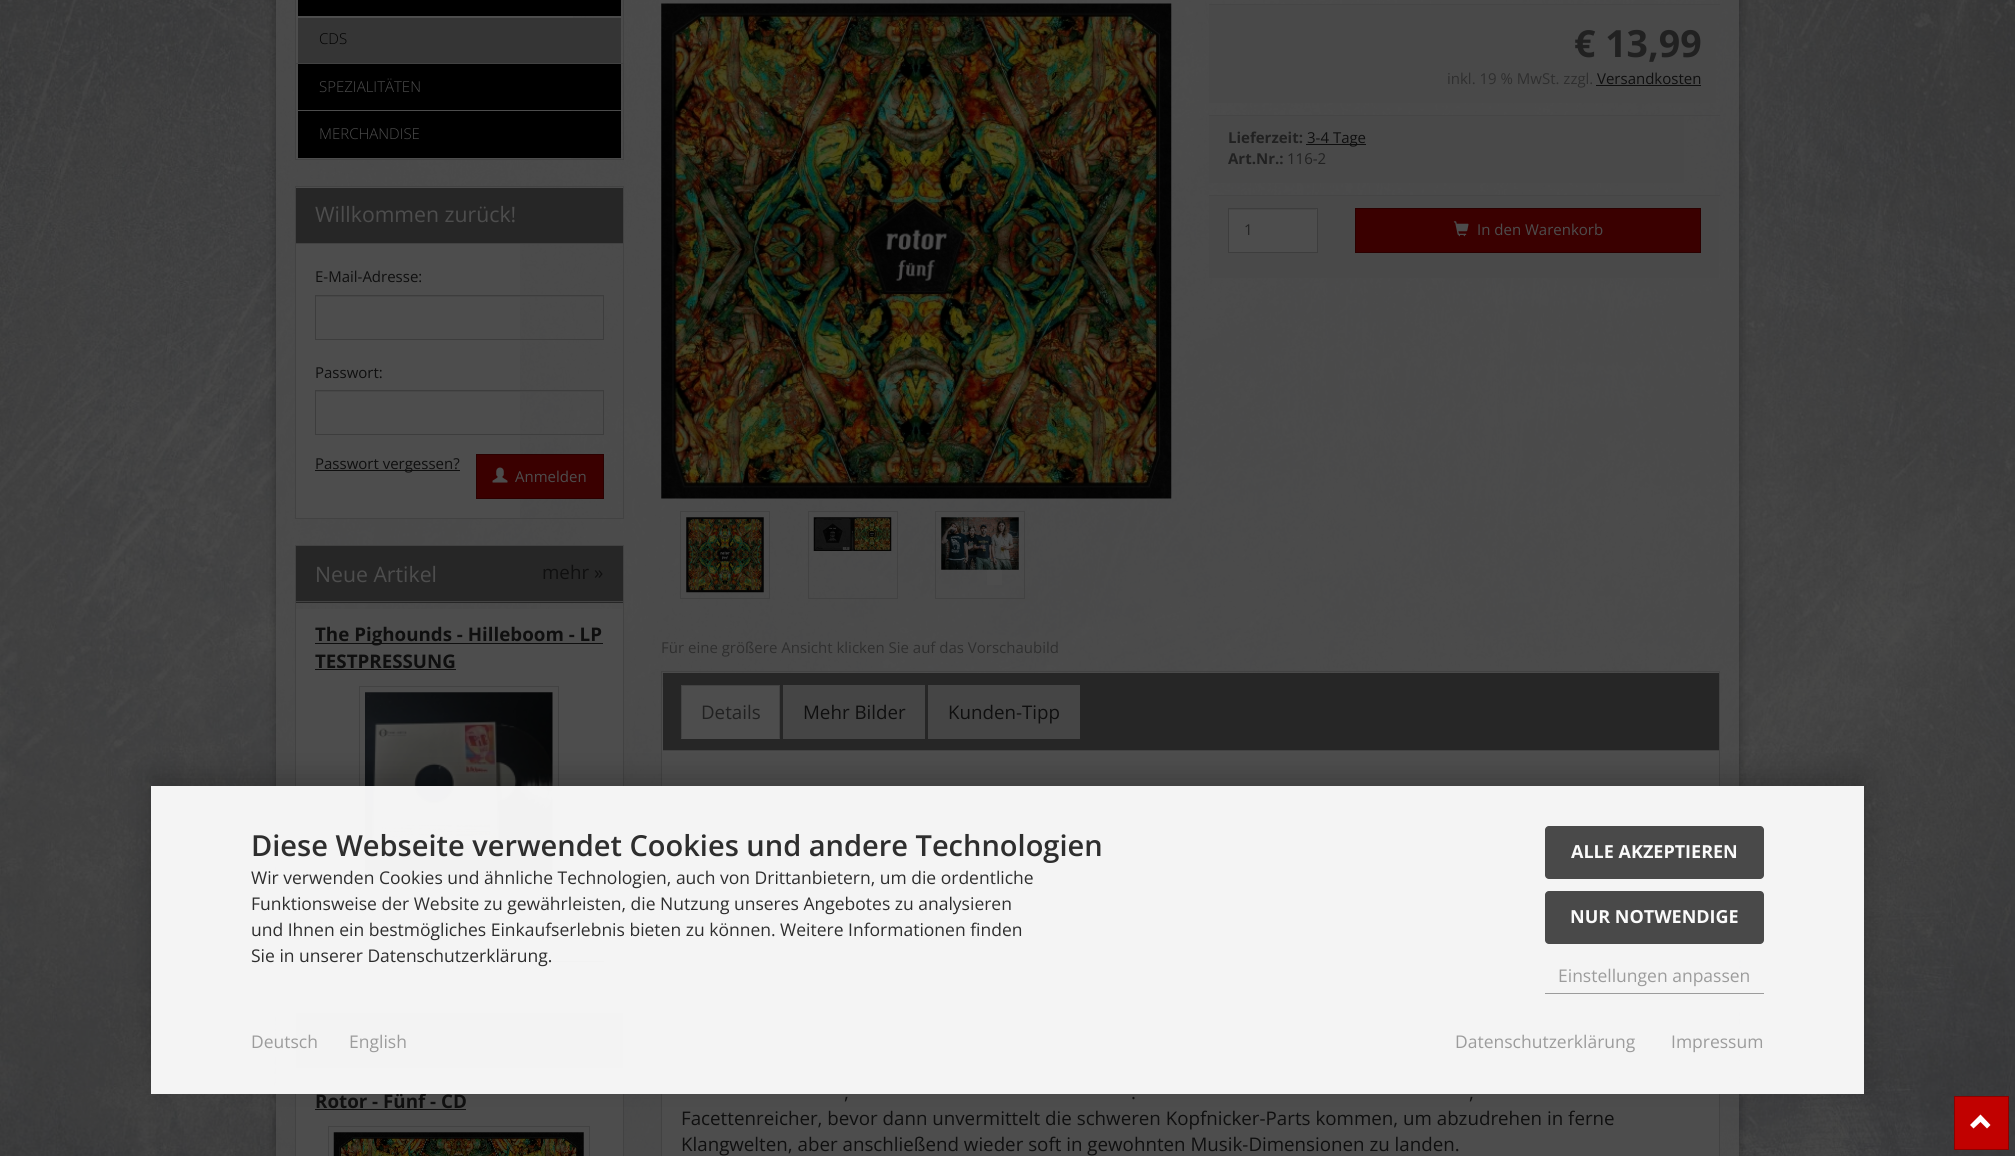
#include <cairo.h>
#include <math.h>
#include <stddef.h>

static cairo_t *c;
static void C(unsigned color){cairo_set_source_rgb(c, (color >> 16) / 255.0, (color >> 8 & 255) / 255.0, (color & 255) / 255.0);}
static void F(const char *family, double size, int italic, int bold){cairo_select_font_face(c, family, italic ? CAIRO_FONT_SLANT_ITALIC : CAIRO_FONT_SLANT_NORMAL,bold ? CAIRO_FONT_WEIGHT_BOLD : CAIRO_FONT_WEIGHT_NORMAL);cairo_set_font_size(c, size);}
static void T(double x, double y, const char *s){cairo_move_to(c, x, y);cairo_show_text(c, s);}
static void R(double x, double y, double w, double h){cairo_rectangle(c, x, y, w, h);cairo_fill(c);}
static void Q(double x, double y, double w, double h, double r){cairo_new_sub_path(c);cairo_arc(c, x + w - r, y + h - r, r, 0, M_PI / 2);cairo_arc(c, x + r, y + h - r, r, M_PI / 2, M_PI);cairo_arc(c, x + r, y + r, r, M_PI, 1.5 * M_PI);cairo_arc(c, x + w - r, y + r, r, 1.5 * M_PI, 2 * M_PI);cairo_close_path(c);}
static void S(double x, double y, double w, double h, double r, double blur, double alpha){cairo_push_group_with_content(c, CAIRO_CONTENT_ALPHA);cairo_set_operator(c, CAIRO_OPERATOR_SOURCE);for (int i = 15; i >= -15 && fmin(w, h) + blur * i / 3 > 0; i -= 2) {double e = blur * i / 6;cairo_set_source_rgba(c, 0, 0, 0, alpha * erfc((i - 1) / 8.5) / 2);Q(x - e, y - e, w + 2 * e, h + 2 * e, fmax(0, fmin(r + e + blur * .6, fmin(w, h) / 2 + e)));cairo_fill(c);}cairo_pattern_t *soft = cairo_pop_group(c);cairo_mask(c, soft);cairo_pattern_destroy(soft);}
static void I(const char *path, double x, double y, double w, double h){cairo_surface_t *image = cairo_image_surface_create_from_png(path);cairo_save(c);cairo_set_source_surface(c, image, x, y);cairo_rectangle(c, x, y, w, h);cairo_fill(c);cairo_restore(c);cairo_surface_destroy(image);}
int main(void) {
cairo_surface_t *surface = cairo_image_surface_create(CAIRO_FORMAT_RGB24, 2015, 1156);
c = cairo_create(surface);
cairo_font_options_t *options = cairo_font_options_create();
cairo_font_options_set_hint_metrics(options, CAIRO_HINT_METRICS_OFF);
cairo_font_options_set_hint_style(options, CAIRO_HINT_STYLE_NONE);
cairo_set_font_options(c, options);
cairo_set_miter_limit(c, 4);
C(0xffffff);
cairo_paint(c);
I("1.png",0,0,2015,1156);
cairo_save(c);
cairo_set_fill_rule(c,CAIRO_FILL_RULE_EVEN_ODD);
cairo_new_path(c);
cairo_move_to(c,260,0);
cairo_line_to(c,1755,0);
cairo_line_to(c,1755,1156);
cairo_line_to(c,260,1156);
cairo_close_path(c);
cairo_move_to(c,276,-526);
cairo_line_to(c,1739,-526);
cairo_line_to(c,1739,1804);
cairo_line_to(c,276,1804);
cairo_close_path(c);
cairo_clip(c);
C(0x000000);
S(276,-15,1463,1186,0,5,.3);
cairo_restore(c);
cairo_set_source_rgba(c,0.302,0.302,0.302,0.8);
R(276,0,1463,1156);
C(0x4d4d4d);
R(296,0,277,110);
cairo_rectangle(c,295.5,-.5,328,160);
C(0x424242);
cairo_set_line_width(c,1);
cairo_stroke(c);
C(0x000000);
R(298,0,323,16);
C(0x424242);
R(296,63,327,1);
C(0x353535);
R(298,18,323,45);
F("Open Sans Light",15,0,0);
C(0x000000);
T(319,44,"CDS");
R(298,64,323,46);
C(0x4d4d4d);
T(319,92,"SPEZIALITÄTEN");
R(296,110,275,49);
C(0x000000);
R(298,111,323,47);
C(0x4d4d4d);
T(319,139,"MERCHANDISE");
R(296,187,224,331);
cairo_rectangle(c,295.5,186.5,328,332);
C(0x424242);
cairo_stroke(c);
C(0x262626);
R(296,188,327,55);
C(0x424242);
R(296,243,327,1);
F("Open Sans",21.25,0,0);
C(0x4d4d4d);
T(315,222,"Willkommen zurück!");
F("Open Sans",15,0,0);
C(0x0f0f0f);
T(315,282,"E-Mail-Adresse:");
C(0x474747);
R(316,296,287,1);
cairo_rectangle(c,315.5,295.5,288,44);
C(0x3d3d3d);
cairo_stroke(c);
C(0x0f0f0f);
T(315,378,"Passwort:");
C(0x474747);
R(316,391,287,1);
cairo_rectangle(c,315.5,390.5,288,44);
C(0x3d3d3d);
cairo_stroke(c);
C(0x0f0f0f);
R(315,470,145,1);
T(315,469,"Passwort vergessen?");
C(0x3a0000);
cairo_rectangle(c,476.5,454.5,127,44);
cairo_fill_preserve(c);
C(0x2a0000);
cairo_stroke(c);
I("2.png",492,467,16,16);
C(0x4d4d4d);
T(515,482,"Anmelden");
R(296,609,327,375);
cairo_rectangle(c,295.5,545.5,328,439);
C(0x424242);
cairo_stroke(c);
C(0x262626);
R(296,546,327,57);
C(0x424242);
R(296,601,327,1);
F("Open Sans",21.25,0,0);
C(0x4d4d4d);
T(315,582,"Neue Artikel");
F("Open Sans",18.75,0,0);
C(0x0f0f0f);
T(542,579,"mehr »");
R(315,643,288,1);
F("Open Sans",18.75,0,1);
T(315,641,"The Pighounds - Hilleboom - LP");
T(315,668,"TESTPRESSUNG");
R(315,669,141,1);
cairo_rectangle(c,359.5,686.5,199,199);
C(0x424242);
cairo_stroke(c);
I("3.png",365,692,188,188);
C(0x0f0f0f);
R(499,961,105,1);
C(0x4d4d4d);
cairo_rectangle(c,295.5,1011.5,328,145);
cairo_fill_preserve(c);
C(0x424242);
cairo_stroke(c);
C(0x262626);
R(296,1013,327,55);
C(0x424242);
R(296,1068,327,1);
C(0x0f0f0f);
T(315,1108,"Rotor - Fünf - CD");
R(315,1109,151,1);
cairo_rectangle(c,328.5,1126.5,261,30);
C(0x424242);
cairo_stroke(c);
I("4.png",333,1132,251,24);
C(0x494949);
R(1209,5,507,98);
C(0x454545);
R(1209,4,511,1);
F("Open Sans",37.5,0,1);
C(0x212121);
T(1574,57,"€ 13,99");
F("Open Sans",15,0,0);
C(0x2e2e2e);
T(1447,84,"inkl. 19 % MwSt. zzgl.");
C(0x0f0f0f);
T(1597,84,"Versandkosten");
R(1596,85,105,1);
C(0x494949);
R(1209,116,475,67);
C(0x454545);
R(1209,115,511,1);
F("Open Sans",15,0,1);
C(0x212121);
T(1228,143,"Lieferzeit:");
C(0x0f0f0f);
R(1306,144,60,1);
F("Open Sans",15,0,0);
T(1307,143,"3-4 Tage");
F("Open Sans",15,0,1);
C(0x212121);
T(1228,164,"Art.Nr.:");
F("Open Sans",15,0,0);
T(1287,164,"116-2");
C(0x494949);
R(1209,196,510,82);
C(0x454545);
R(1209,195,511,1);
C(0x4d4d4d);
R(1229,209,88,43);
C(0x474747);
R(1229,209,87,1);
cairo_rectangle(c,1228.5,208.5,89,44);
C(0x3d3d3d);
cairo_stroke(c);
C(0x212121);
T(1244,235,"1");
C(0x3a0000);
cairo_rectangle(c,1355.5,208.5,345,44);
cairo_fill_preserve(c);
C(0x2a0000);
cairo_stroke(c);
I("5.png",1453,221,16,16);
C(0x4d4d4d);
T(1477,235,"In den Warenkorb");
I("6.png",661,3,511,496);
cairo_rectangle(c,680.5,511.5,89,87);
C(0x424242);
cairo_stroke(c);
I("7.png",686,517,78,76);
cairo_rectangle(c,808.5,511.5,89,87);
cairo_stroke(c);
I("8.png",813,517,79,34);
C(0x4d4d4d);
R(987,559,15,26);
cairo_rectangle(c,935.5,511.5,89,87);
C(0x424242);
cairo_stroke(c);
I("9.png",941,517,78,53);
C(0x2e2e2e);
T(661,653,"Für eine größere Ansicht klicken Sie auf das Vorschaubild");
C(0x4d4d4d);
R(662,687,1057,469);
cairo_rectangle(c,661.5,671.5,1058,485);
C(0x424242);
cairo_stroke(c);
C(0x262626);
R(663,673,1056,77);
C(0x424242);
R(663,750,1056,1);
C(0x4d4d4d);
R(681,686,99,53);
C(0x424242);
R(681,685,99,1);
cairo_new_path(c);
cairo_move_to(c,780,685);
cairo_line_to(c,780,739);
cairo_line_to(c,779,738);
cairo_line_to(c,779,686);
cairo_close_path(c);
cairo_fill(c);
cairo_new_path(c);
cairo_move_to(c,681,739);
cairo_line_to(c,681,685);
cairo_line_to(c,682,686);
cairo_line_to(c,682,738);
cairo_close_path(c);
cairo_fill(c);
F("Open Sans",18.75,0,0);
C(0x212121);
T(701,719,"Details");
C(0x454545);
R(783,685,142,54);
C(0x0f0f0f);
T(803,719,"Mehr Bilder");
C(0x454545);
R(928,685,152,54);
C(0x0f0f0f);
T(948,719,"Kunden-Tipp");
T(844,1099,",");
T(1131,1099,".");
T(1469,1099,",");
T(681,1125,"Facettenreicher, bevor dann unvermittelt die schweren Kopfnicker-Parts kommen, um abzudrehen in ferne");
T(681,1151,"Klangwelten, aber anschließend wieder soft in gewohnten Musik-Dimensionen zu landen.");
C(0xc10100);
cairo_rectangle(c,1954.5,1096.5,54,53);
cairo_fill_preserve(c);
C(0x8c0100);
cairo_stroke(c);
C(0xffffff);
cairo_new_path(c);
cairo_move_to(c,1990.5,1125);
cairo_line_to(c,1987,1128.5);
cairo_line_to(c,1980.5,1122);
cairo_line_to(c,1973.5,1128.5);
cairo_line_to(c,1970,1125);
cairo_line_to(c,1980.5,1114.5);
cairo_close_path(c);
cairo_fill(c);
cairo_save(c);
cairo_set_fill_rule(c,CAIRO_FILL_RULE_EVEN_ODD);
cairo_new_path(c);
cairo_move_to(c,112,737);
cairo_line_to(c,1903,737);
cairo_line_to(c,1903,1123);
cairo_line_to(c,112,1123);
cairo_close_path(c);
cairo_move_to(c,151,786);
cairo_line_to(c,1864,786);
cairo_line_to(c,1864,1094);
cairo_line_to(c,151,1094);
cairo_close_path(c);
cairo_clip(c);
C(0x000000);
S(151,776,1713,308,0,12.5,.19);
cairo_restore(c);
cairo_set_source_rgba(c,0.976,0.976,0.976,0.97);
R(151,786,1713,308);
F("Open Sans SemiBold",29,0,0);
C(0x2e2e2e);
T(251,856,"Diese Webseite verwendet Cookies und andere Technologien");
F("Open Sans",17.5,0,0);
T(251,884,"Wir verwenden Cookies und ähnliche Technologien, auch von Drittanbietern, um die ordentliche");
T(251,910,"Funktionsweise der Website zu gewährleisten, die Nutzung unseres Angebotes zu analysieren");
T(251,936,"und Ihnen ein bestmögliches Einkaufserlebnis bieten zu können. Weitere Informationen finden");
T(251,962,"Sie in unserer Datenschutzerklärung.");
C(0x494949);
Q(1545,826,219,53,4);
cairo_fill(c);
F("Open Sans",18,0,1);
C(0xfafafa);
T(1571,858,"ALLE AKZEPTIEREN");
C(0x494949);
Q(1545,891,219,53,4);
cairo_fill(c);
C(0xfafafa);
T(1570,923,"NUR NOTWENDIGE");
C(0x9c9c9c);
R(1545,993,219,1);
F("Open Sans",17.5,0,0);
T(1558,982,"Einstellungen anpassen");
T(251,1048,"Deutsch");
T(349,1048,"English");
T(1455,1048,"Datenschutzerklärung");
T(1671,1048,"Impressum");
cairo_surface_write_to_png(surface, "o.png");
cairo_font_options_destroy(options);
cairo_destroy(c);
cairo_surface_destroy(surface);
return 0;
}
